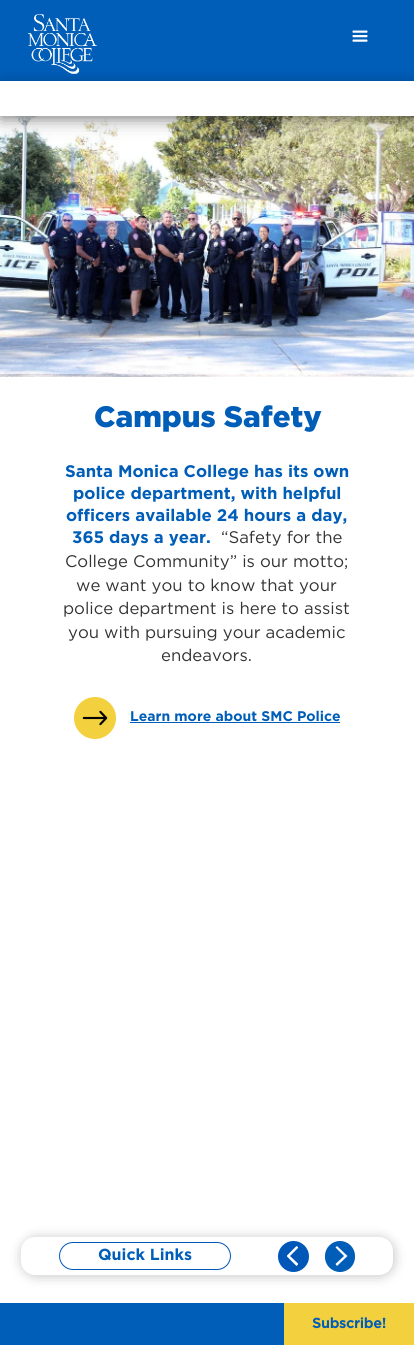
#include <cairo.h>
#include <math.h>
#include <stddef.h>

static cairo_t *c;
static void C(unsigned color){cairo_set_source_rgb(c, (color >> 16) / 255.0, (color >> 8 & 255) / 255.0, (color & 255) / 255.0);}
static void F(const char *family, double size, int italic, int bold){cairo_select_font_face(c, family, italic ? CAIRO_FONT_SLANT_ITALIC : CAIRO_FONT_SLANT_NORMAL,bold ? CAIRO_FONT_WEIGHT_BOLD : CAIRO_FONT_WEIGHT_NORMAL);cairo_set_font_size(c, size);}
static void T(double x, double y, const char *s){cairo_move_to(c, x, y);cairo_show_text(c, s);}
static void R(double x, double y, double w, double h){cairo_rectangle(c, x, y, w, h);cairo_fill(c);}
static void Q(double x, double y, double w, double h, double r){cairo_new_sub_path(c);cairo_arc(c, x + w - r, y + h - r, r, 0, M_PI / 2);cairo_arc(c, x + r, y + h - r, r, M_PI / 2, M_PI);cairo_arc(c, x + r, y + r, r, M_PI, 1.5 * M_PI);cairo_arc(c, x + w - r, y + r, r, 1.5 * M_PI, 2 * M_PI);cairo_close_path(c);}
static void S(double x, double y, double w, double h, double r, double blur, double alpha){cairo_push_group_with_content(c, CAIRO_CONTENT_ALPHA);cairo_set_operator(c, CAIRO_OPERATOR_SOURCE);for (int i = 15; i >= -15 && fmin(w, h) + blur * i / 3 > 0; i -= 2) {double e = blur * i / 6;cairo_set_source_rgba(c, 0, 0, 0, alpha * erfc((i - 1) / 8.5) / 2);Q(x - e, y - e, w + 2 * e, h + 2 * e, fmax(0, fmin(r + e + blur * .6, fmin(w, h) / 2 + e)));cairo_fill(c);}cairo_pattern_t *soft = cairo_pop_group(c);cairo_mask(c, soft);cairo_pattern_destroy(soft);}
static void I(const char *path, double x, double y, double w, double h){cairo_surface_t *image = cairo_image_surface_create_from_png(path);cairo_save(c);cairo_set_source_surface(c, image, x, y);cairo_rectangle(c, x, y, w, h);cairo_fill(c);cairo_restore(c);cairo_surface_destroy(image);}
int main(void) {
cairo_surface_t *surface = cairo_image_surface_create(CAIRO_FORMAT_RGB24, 414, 1345);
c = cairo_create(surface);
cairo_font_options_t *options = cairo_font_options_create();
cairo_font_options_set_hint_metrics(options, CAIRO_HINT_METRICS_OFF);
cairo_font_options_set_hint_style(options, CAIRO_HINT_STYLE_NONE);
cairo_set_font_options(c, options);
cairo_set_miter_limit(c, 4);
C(0xffffff);
cairo_paint(c);
I("3.png",0,116,414,261);
C(0x333333);
S(1,1,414,116,0,10,.54);
C(0x005db8);
R(0,0,414,81);
I("1.png",28,14,69,60);
I("2.png",352,30,16,12);
C(0x000000);
S(1,82,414,35,0,6.5,.23);
C(0xffffff);
R(0,81,414,35);
F("Gotham Black",29.5,0,0);
C(0x005db8);
T(94,427,"Campus Safety");
F("Gotham",16.75,0,1);
T(65,477,"Santa Monica College has its own");
T(73,499,"police department, with helpful");
T(66,521,"officers available 24 hours a day,");
T(72,543,"365 days a year.");
F("Gotham",16.75,0,0);
C(0x333333);
T(221,543,"“Safety for the");
T(65,567,"College Community” is our motto;");
T(76,591,"we want you to know that your");
T(63,614,"police department is here to assist");
T(68,638,"you with pursuing your academic");
T(161,661,"endeavors.");
I("4.png",74,697,42,42);
F("Gotham",14,0,1);
C(0x005db8);
T(130,721,"Learn more about SMC Police");
R(130,722,210,1);
C(0x000000);
S(22,1238,372,38,14,6,.24);
C(0xffffff);
Q(21,1237,372,38,14);
cairo_fill(c);
Q(59.5,1242.5,171,27,13.5);
C(0x0057b7);
cairo_set_line_width(c,1);
cairo_stroke(c);
F("Gotham",16,0,1);
C(0x005db8);
T(98,1260,"Quick Links");
C(0x0057b7);
cairo_new_path(c);
cairo_arc(c,293.5,1256.5,15.5,0,2 * M_PI);
cairo_fill(c);
cairo_save(c);
cairo_rectangle(c,287,1246,11,20);
cairo_clip(c);
C(0xffffff);
cairo_new_path(c);
cairo_move_to(c,298.5,1264);
cairo_line_to(c,290,1256);
cairo_line_to(c,298.5,1247.5);
cairo_line_to(c,296.5,1246);
cairo_line_to(c,286.5,1256);
cairo_line_to(c,296.5,1266);
cairo_close_path(c);
cairo_fill(c);
cairo_restore(c);
C(0x005db8);
Q(325,1241,30,31,15);
cairo_fill(c);
C(0xffffff);
cairo_new_path(c);
cairo_move_to(c,335.5,1247.5);
cairo_line_to(c,344,1256);
cairo_line_to(c,335.5,1264);
cairo_line_to(c,337,1266);
cairo_line_to(c,347.5,1256);
cairo_line_to(c,337,1246);
cairo_close_path(c);
cairo_fill(c);
C(0x005db8);
R(0,1303,284,42);
C(0xf3d03e);
R(284,1303,130,42);
F("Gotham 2",14,0,1);
C(0x005db8);
T(312,1328,"Subscribe!");
cairo_surface_write_to_png(surface, "o.png");
cairo_font_options_destroy(options);
cairo_destroy(c);
cairo_surface_destroy(surface);
return 0;
}
